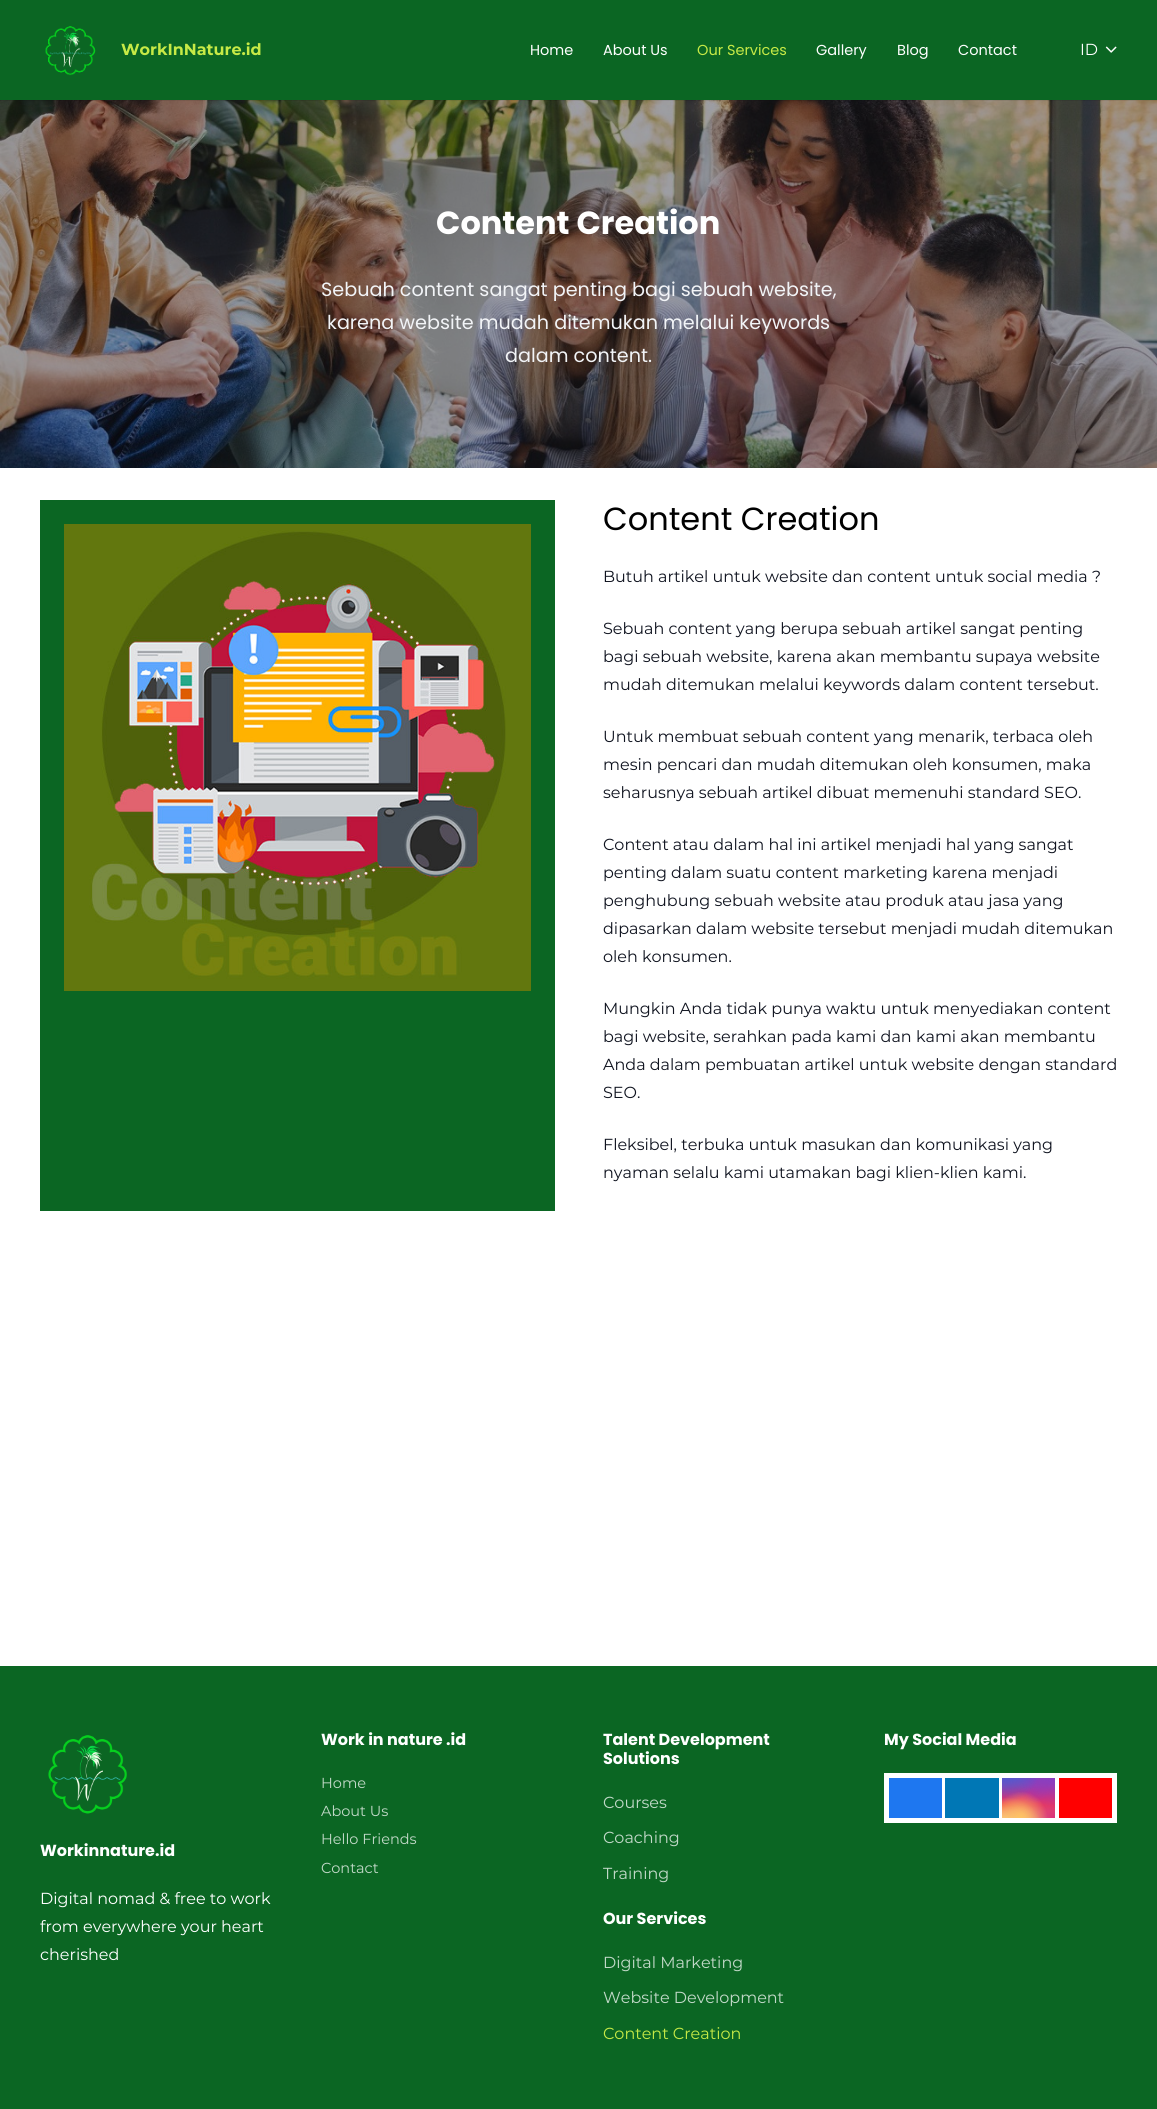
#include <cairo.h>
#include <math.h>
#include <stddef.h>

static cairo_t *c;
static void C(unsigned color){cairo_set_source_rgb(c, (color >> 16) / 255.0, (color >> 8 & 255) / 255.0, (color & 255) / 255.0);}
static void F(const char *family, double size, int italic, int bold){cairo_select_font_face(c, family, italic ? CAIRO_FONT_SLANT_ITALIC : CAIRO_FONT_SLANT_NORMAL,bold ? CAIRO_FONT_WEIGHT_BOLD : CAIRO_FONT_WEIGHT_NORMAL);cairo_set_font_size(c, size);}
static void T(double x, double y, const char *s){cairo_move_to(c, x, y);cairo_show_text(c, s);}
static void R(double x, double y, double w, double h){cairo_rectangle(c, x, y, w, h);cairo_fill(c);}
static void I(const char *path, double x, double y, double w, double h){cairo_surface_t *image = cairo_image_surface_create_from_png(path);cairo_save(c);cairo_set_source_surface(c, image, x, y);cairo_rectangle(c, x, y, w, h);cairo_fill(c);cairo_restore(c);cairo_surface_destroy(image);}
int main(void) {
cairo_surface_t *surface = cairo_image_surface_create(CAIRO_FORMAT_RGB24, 1157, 2109);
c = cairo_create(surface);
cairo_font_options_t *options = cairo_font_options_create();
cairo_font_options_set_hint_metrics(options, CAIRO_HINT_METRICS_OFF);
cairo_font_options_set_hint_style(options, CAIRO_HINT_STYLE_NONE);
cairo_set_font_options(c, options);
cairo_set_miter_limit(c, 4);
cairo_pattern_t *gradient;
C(0xffffff);
cairo_paint(c);
I("3.png",0,100,1157,368);
cairo_set_source_rgba(c,0,0,0,0.08);
R(0,100,1157,1);
C(0x0b6623);
R(0,0,1157,100);
I("1.png",45,26,51,50);
F("Montserrat",16,0,1);
C(0xc7ea46);
T(121,55,"WorkInNature.id");
F("Poppins",14.5,0,0);
C(0xffffff);
T(530,55,"Home");
T(603,55,"About Us");
C(0xc7ea46);
T(697,55,"Our Services");
C(0xffffff);
T(816,55,"Gallery");
T(897,55,"Blog");
T(958,55,"Contact");
F("Montserrat",16,0,0);
T(1080,55,"ID");
I("2.png",1105,46,12,7);
F("Poppins",32,0,1);
T(436,234,"Content Creation");
F("Poppins",19.2,0,0);
C(0xf2f4f7);
T(321,296,"Sebuah content sangat penting bagi sebuah website,");
T(327,329,"karena website mudah ditemukan melalui keywords");
T(505,362,"dalam content.");
C(0x0b6623);
R(40,500,515,711);
I("4.png",64,524,467,467);
F("Poppins",32,0,0);
C(0x000000);
T(603,530,"Content Creation");
F("Montserrat",16,0,0);
C(0x0f131f);
T(603,582,"Butuh artikel untuk website dan content untuk social media ?");
T(603,634,"Sebuah content yang berupa sebuah artikel sangat penting");
T(603,662,"bagi sebuah website, karena akan membantu supaya website");
T(603,690,"mudah ditemukan melalui keywords dalam content tersebut.");
T(603,742,"Untuk membuat sebuah content yang menarik, terbaca oleh");
T(603,770,"mesin pencari dan mudah ditemukan oleh konsumen, maka");
T(603,798,"seharusnya sebuah artikel dibuat memenuhi standard SEO.");
T(603,850,"Content atau dalam hal ini artikel menjadi hal yang sangat");
T(603,878,"penting dalam suatu content marketing karena menjadi");
T(603,906,"penghubung sebuah website atau produk atau jasa yang");
T(603,934,"dipasarkan dalam website tersebut menjadi mudah ditemukan");
T(603,962,"oleh konsumen.");
T(603,1014,"Mungkin Anda tidak punya waktu untuk menyediakan content");
T(603,1042,"bagi website, serahkan pada kami dan kami akan membantu");
T(603,1070,"Anda dalam pembuatan artikel untuk website dengan standard");
T(603,1098,"SEO.");
T(603,1150,"Fleksibel, terbuka untuk masukan dan komunikasi yang");
T(603,1178,"nyaman selalu kami utamakan bagi klien-klien kami.");
C(0x0b6623);
R(0,1666,1157,443);
I("5.png",48,1735,79,79);
F("Poppins",16,0,1);
C(0xffffff);
T(40,1856,"Workinnature.id");
F("Montserrat",16,0,0);
T(40,1904,"Digital nomad & free to work");
T(40,1932,"from everywhere your heart");
T(40,1960,"cherished");
F("Poppins",16,0,1);
T(321,1745,"Work in nature .id");
F("Montserrat",14.5,0,0);
C(0xc2d9c8);
T(321,1788,"Home");
T(321,1816,"About Us");
T(321,1844,"Hello Friends");
T(321,1873,"Contact");
F("Poppins",16,0,1);
C(0xffffff);
T(603,1745,"Talent Development");
T(603,1764,"Solutions");
F("Montserrat",16,0,0);
C(0xc2d9c8);
T(603,1808,"Courses");
T(603,1843,"Coaching");
T(603,1879,"Training");
F("Poppins",16,0,1);
C(0xffffff);
T(603,1924,"Our Services");
F("Montserrat",16,0,0);
C(0xc2d9c8);
T(603,1968,"Digital Marketing");
T(603,2003,"Website Development");
C(0xc7ea46);
T(603,2039,"Content Creation");
F("Poppins",16,0,1);
C(0xffffff);
T(884,1745,"My Social Media");
R(884,1773,233,50);
C(0x1e77f0);
R(889,1778,53,40);
C(0x0077b5);
R(945,1778,54,40);
gradient = cairo_pattern_create_linear(1029,1778,1029,1818);
cairo_pattern_add_color_stop_rgba(gradient,0,0.396,0.349,0.792,1);
cairo_pattern_add_color_stop_rgba(gradient,.3,0.737,0.192,0.561,1);
cairo_pattern_add_color_stop_rgba(gradient,.5,0.894,0.18,0.4,1);
cairo_pattern_add_color_stop_rgba(gradient,.7,0.98,0.325,0.196,1);
cairo_pattern_add_color_stop_rgba(gradient,1,1,0.863,0.502,1);
cairo_set_source(c,gradient);
cairo_pattern_destroy(gradient);
R(1002,1778,53,40);
gradient = cairo_pattern_create_radial(0,0,0,0,0,1);
cairo_pattern_set_matrix(gradient, &(cairo_matrix_t){1.0 / 75, 0, 0, 1.0 / 57, -1.0 * 1055 / 75, -1.0 * 1818 / 57});
cairo_pattern_add_color_stop_rgba(gradient,0,0.851,0.192,0.478,1);
cairo_pattern_add_color_stop_rgba(gradient,1,0.851,0.192,0.478,0);
cairo_set_source(c,gradient);
cairo_pattern_destroy(gradient);
R(1002,1778,53,40);
gradient = cairo_pattern_create_radial(0,0,0,0,0,1);
cairo_pattern_set_matrix(gradient, &(cairo_matrix_t){1.0 / 45, 0, 0, 1.0 / 68, -1.0 * 1034 / 45, -1.0 * 1770 / 68});
cairo_pattern_add_color_stop_rgba(gradient,0,0.537,0.239,0.761,1);
cairo_pattern_add_color_stop_rgba(gradient,.5,0.537,0.239,0.761,0);
cairo_set_source(c,gradient);
cairo_pattern_destroy(gradient);
R(1015,1778,39,25);
gradient = cairo_pattern_create_radial(0,0,0,0,0,1);
cairo_pattern_set_matrix(gradient, &(cairo_matrix_t){1.0 / 75, 0, 0, 1.0 / 57, -1.0 * 1055 / 75, -1.0 * 1778 / 57});
cairo_pattern_add_color_stop_rgba(gradient,0,0.537,0.239,0.761,1);
cairo_pattern_add_color_stop_rgba(gradient,.5,0.537,0.239,0.761,0);
cairo_set_source(c,gradient);
cairo_pattern_destroy(gradient);
R(1022,1778,33,28);
gradient = cairo_pattern_create_radial(0,0,0,0,0,1);
cairo_pattern_set_matrix(gradient, &(cairo_matrix_t){1.0 / 60, 0, 0, 1.0 / 85, -1.0 * 1013 / 60, -1.0 * 1758 / 85});
cairo_pattern_add_color_stop_rgba(gradient,0,0.322,0.345,0.812,1);
cairo_pattern_add_color_stop_rgba(gradient,.5,0.322,0.345,0.812,0);
cairo_set_source(c,gradient);
cairo_pattern_destroy(gradient);
R(1002,1778,36,22);
gradient = cairo_pattern_create_radial(0,0,0,0,0,1);
cairo_pattern_set_matrix(gradient, &(cairo_matrix_t){1.0 / 75, 0, 0, 1.0 / 71, -1.0 * 1002 / 75, -1.0 * 1768 / 71});
cairo_pattern_add_color_stop_rgba(gradient,0,0.322,0.345,0.812,1);
cairo_pattern_add_color_stop_rgba(gradient,.5,0.322,0.345,0.812,0);
cairo_set_source(c,gradient);
cairo_pattern_destroy(gradient);
R(1002,1778,34,25);
gradient = cairo_pattern_create_radial(1007,1834,0,1007,1834,74);
cairo_pattern_add_color_stop_rgba(gradient,0,0.996,0.855,0.494,1);
cairo_pattern_add_color_stop_rgba(gradient,.5,0.996,0.855,0.494,0);
cairo_set_source(c,gradient);
cairo_pattern_destroy(gradient);
R(1002,1798,37,20);
gradient = cairo_pattern_create_radial(1021,1818,0,1021,1818,53);
cairo_pattern_add_color_stop_rgba(gradient,0,0.996,0.773,0.392,1);
cairo_pattern_add_color_stop_rgba(gradient,.5,0.996,0.773,0.392,0);
cairo_set_source(c,gradient);
cairo_pattern_destroy(gradient);
R(1002,1792,45,26);
C(0xff0000);
R(1059,1778,53,40);
cairo_surface_write_to_png(surface, "o.png");
cairo_font_options_destroy(options);
cairo_destroy(c);
cairo_surface_destroy(surface);
return 0;
}
